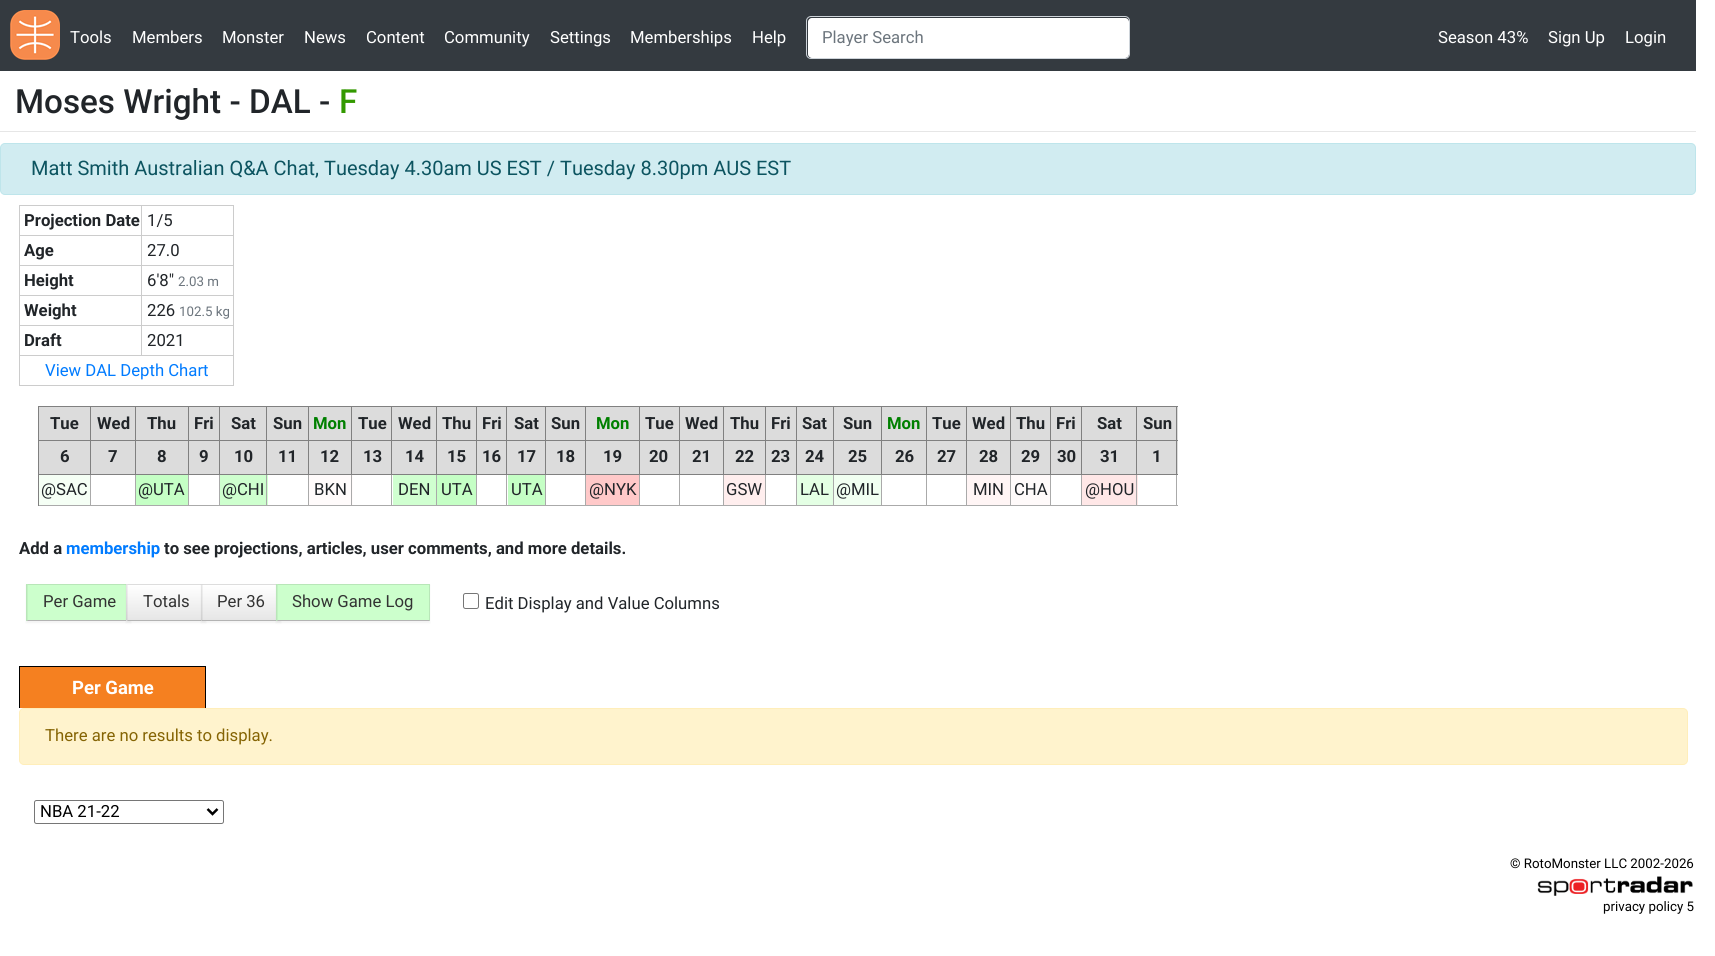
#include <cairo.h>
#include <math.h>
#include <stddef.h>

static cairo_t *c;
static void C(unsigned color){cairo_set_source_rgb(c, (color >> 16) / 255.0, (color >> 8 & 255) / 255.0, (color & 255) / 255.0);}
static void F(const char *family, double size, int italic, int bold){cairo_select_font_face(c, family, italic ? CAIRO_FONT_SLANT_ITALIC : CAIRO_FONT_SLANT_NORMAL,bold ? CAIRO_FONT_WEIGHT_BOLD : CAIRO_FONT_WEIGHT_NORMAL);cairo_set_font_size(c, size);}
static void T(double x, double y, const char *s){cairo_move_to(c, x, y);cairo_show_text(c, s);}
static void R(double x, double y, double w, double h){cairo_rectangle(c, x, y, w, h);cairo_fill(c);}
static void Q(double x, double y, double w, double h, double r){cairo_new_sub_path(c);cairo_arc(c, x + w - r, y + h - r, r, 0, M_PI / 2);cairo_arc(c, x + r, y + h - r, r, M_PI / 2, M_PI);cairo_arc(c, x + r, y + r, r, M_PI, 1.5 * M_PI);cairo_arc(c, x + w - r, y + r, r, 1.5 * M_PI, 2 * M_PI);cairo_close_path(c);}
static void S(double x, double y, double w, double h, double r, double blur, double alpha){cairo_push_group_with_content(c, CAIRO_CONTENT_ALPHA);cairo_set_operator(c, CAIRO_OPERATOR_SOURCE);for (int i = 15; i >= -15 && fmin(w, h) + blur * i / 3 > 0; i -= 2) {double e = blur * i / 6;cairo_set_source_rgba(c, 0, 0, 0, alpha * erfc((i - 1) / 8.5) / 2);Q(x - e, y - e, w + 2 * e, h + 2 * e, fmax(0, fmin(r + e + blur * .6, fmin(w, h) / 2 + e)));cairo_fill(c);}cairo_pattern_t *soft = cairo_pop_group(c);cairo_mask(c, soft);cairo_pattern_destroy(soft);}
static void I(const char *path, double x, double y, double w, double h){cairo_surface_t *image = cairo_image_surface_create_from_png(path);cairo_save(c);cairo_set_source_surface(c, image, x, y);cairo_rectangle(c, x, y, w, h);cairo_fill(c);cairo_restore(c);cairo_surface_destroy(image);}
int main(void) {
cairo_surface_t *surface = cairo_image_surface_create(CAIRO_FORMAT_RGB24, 1715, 956);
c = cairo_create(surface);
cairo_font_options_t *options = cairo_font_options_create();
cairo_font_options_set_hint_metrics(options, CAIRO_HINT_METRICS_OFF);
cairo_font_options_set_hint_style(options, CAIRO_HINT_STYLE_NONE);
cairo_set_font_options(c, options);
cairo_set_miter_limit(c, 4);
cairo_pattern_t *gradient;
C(0xffffff);
cairo_paint(c);
C(0x343a40);
R(0,0,1696,71);
I("1.png",10,10,50,50);
F("Roboto",16.7,0,0);
C(0xffffff);
T(70,43,"Tools");
T(132,43,"Members");
T(222,43,"Monster");
T(304,43,"News");
T(366,43,"Content");
T(444,43,"Community");
T(550,43,"Settings");
T(630,43,"Memberships");
T(752,43,"Help");
Q(808,18,321,40,4);
cairo_fill(c);
Q(806.5,16.5,323,42,4.5);
C(0xced4da);
cairo_set_line_width(c,1);
cairo_stroke(c);
cairo_save(c);
cairo_rectangle(c,823,28,291,18);
cairo_clip(c);
C(0x6c757d);
T(822,43,"Player Search");
cairo_restore(c);
C(0xffffff);
T(1438,43,"Season 43%");
T(1548,43,"Sign Up");
T(1625,43,"Login");
C(0xe6e6e6);
R(0,131,1696,1);
F("Roboto Medium",33.25,0,0);
C(0x212529);
T(15,113,"Moses Wright - DAL -");
C(0x339900);
T(339,113,"F");
C(0xd1ecf1);
Q(.5,143.5,1695,51,4.5);
cairo_fill_preserve(c);
C(0xbee5eb);
cairo_stroke(c);
F("Roboto",20,0,0);
C(0x0c5460);
T(31,175,"Matt Smith Australian Q&A Chat, Tuesday 4.30am US EST / Tuesday 8.30pm AUS EST");
C(0xcccccc);
R(141,205,93,1);
R(141,235,93,1);
R(141,265,93,1);
R(141,295,93,1);
R(141,325,93,1);
R(19,355,215,1);
R(141,325,1,31);
R(19,325,124,1);
R(141,295,1,31);
R(19,295,124,1);
R(141,265,1,31);
R(19,265,124,1);
R(141,235,1,31);
R(19,235,124,1);
R(141,205,1,31);
R(19,205,124,1);
R(233,355,1,31);
R(19,385,215,1);
R(19,355,1,31);
R(19,325,1,31);
R(19,295,1,31);
R(19,265,1,31);
R(19,235,1,31);
R(19,205,1,31);
F("Roboto",16.7,0,1);
C(0x212529);
T(24,226,"Projection Date");
C(0xcccccc);
R(233,325,1,31);
R(233,295,1,31);
R(233,265,1,31);
R(233,235,1,31);
R(233,205,1,31);
F("Roboto",16.7,0,0);
C(0x212529);
T(147,226,"1/5");
F("Roboto",16.7,0,1);
T(24,256,"Age");
F("Roboto",16.7,0,0);
T(147,256,"27.0");
F("Roboto",16.7,0,1);
T(24,286,"Height");
F("Roboto",16.7,0,0);
T(147,286,"6'8\"");
F("Roboto",13.3,0,0);
C(0x6c757d);
T(178,286,"2.03 m");
F("Roboto",16.7,0,1);
C(0x212529);
T(24,316,"Weight");
F("Roboto",16.7,0,0);
T(147,316,"226");
F("Roboto",13.3,0,0);
C(0x6c757d);
T(179,316,"102.5 kg");
F("Roboto",16.7,0,1);
C(0x212529);
T(24,346,"Draft");
F("Roboto",16.7,0,0);
T(147,346,"2021");
C(0x007bff);
T(45,376,"View DAL Depth Chart");
C(0x808080);
R(38,406,1140,1);
C(0xdcdcdc);
R(1082,407,96,33);
C(0x808080);
R(1176,406,1,34);
C(0xdcdcdc);
R(39,407,51,33);
F("Roboto",16.7,0,1);
C(0x212529);
T(50,429,"Tue");
C(0xdcdcdc);
R(91,407,44,33);
C(0x212529);
T(97,429,"Wed");
C(0xdcdcdc);
R(136,407,52,33);
C(0x212529);
T(147,429,"Thu");
C(0xdcdcdc);
R(189,407,30,33);
C(0x212529);
T(194,429,"Fri");
C(0xdcdcdc);
R(220,407,88,33);
C(0x212529);
T(231,429,"Sat");
T(273,429,"Sun");
C(0xdcdcdc);
R(309,407,127,33);
C(0x008000);
T(313,429,"Mon");
C(0x212529);
T(358,429,"Tue");
T(398,429,"Wed");
C(0xdcdcdc);
R(437,407,39,33);
C(0x212529);
T(442,429,"Thu");
C(0xdcdcdc);
R(477,407,68,33);
C(0x212529);
T(482,429,"Fri");
T(514,429,"Sat");
C(0xdcdcdc);
R(546,407,39,33);
C(0x212529);
T(551,429,"Sun");
C(0xdcdcdc);
R(586,407,53,33);
C(0x008000);
T(596,429,"Mon");
C(0xdcdcdc);
R(640,407,39,33);
C(0x212529);
T(645,429,"Tue");
C(0xdcdcdc);
R(680,407,43,33);
C(0x212529);
T(685,429,"Wed");
C(0xdcdcdc);
R(724,407,41,33);
C(0x212529);
T(730,429,"Thu");
C(0xdcdcdc);
R(766,407,30,33);
C(0x212529);
T(771,429,"Fri");
C(0xdcdcdc);
R(797,407,36,33);
C(0x212529);
T(802,429,"Sat");
C(0xdcdcdc);
R(834,407,47,33);
C(0x212529);
T(843,429,"Sun");
C(0xdcdcdc);
R(882,407,44,33);
C(0x008000);
T(887,429,"Mon");
C(0xdcdcdc);
R(927,407,39,33);
C(0x212529);
T(932,429,"Tue");
C(0xdcdcdc);
R(967,407,43,33);
C(0x212529);
T(972,429,"Wed");
C(0xdcdcdc);
R(1011,407,39,33);
C(0x212529);
T(1016,429,"Thu");
C(0xdcdcdc);
R(1051,407,30,33);
C(0x212529);
T(1056,429,"Fri");
T(1097,429,"Sat");
T(1143,429,"Sun");
C(0xdcdcdc);
R(39,441,51,33);
R(220,441,88,33);
R(309,441,127,33);
R(477,441,68,33);
R(1082,441,96,33);
C(0x808080);
R(38,440,1140,1);
C(0xaaaaaa);
R(1176,474,1,32);
C(0x808080);
R(1176,440,1,35);
C(0xffe7e7);
R(1082,475,56,30);
C(0xaaaaaa);
R(1136,505,42,1);
R(1136,474,1,32);
C(0x808080);
R(1136,474,42,1);
R(1136,406,1,69);
C(0xaaaaaa);
R(1081,505,57,1);
R(1081,474,1,32);
C(0x808080);
R(1081,474,57,1);
R(1081,406,1,69);
C(0xaaaaaa);
R(1050,505,33,1);
R(1050,474,1,32);
C(0x808080);
R(1050,474,33,1);
R(1050,406,1,69);
C(0xaaaaaa);
R(1010,505,41,1);
R(1010,474,1,32);
C(0x808080);
R(1010,474,41,1);
R(1010,406,1,69);
C(0xaaaaaa);
R(966,505,45,1);
R(966,474,1,32);
C(0x808080);
R(966,474,45,1);
R(966,406,1,69);
C(0xaaaaaa);
R(926,505,42,1);
R(926,474,1,32);
C(0x808080);
R(926,474,42,1);
R(926,406,1,69);
C(0xaaaaaa);
R(881,505,47,1);
R(881,474,1,32);
C(0x808080);
R(881,474,47,1);
R(881,406,1,69);
C(0xaaaaaa);
R(833,505,50,1);
R(833,474,1,32);
C(0x808080);
R(833,474,50,1);
R(833,406,1,69);
C(0xaaaaaa);
R(796,505,38,1);
R(796,474,1,32);
C(0x808080);
R(796,474,38,1);
R(796,406,1,69);
C(0xaaaaaa);
R(765,505,33,1);
R(765,474,1,32);
C(0x808080);
R(765,474,33,1);
R(765,406,1,69);
C(0xaaaaaa);
R(723,505,43,1);
R(723,474,1,32);
C(0x808080);
R(723,474,43,1);
R(723,406,1,69);
C(0xaaaaaa);
R(679,505,45,1);
R(679,474,1,32);
C(0x808080);
R(679,474,45,1);
R(679,406,1,69);
C(0xaaaaaa);
R(639,505,41,1);
R(639,474,1,32);
C(0x808080);
R(639,474,41,1);
R(639,406,1,69);
C(0xaaaaaa);
R(585,505,55,1);
R(585,474,1,32);
C(0x808080);
R(585,474,55,1);
R(585,406,1,69);
C(0xaaaaaa);
R(545,505,41,1);
R(545,474,1,32);
C(0x808080);
R(545,474,41,1);
R(545,406,1,69);
C(0xaaaaaa);
R(506,505,40,1);
R(506,474,1,32);
C(0x808080);
R(506,474,40,1);
R(506,406,1,69);
C(0xaaaaaa);
R(476,505,32,1);
R(476,474,1,32);
C(0x808080);
R(476,474,32,1);
R(476,406,1,69);
C(0xaaaaaa);
R(436,505,42,1);
R(436,474,1,32);
C(0x808080);
R(436,474,42,1);
R(436,406,1,69);
C(0xaaaaaa);
R(391,505,47,1);
R(391,474,1,32);
C(0x808080);
R(391,474,47,1);
R(391,406,1,69);
C(0xfffbfb);
R(309,475,44,30);
C(0xaaaaaa);
R(351,505,42,1);
R(351,474,1,32);
C(0x808080);
R(351,474,42,1);
R(351,406,1,69);
C(0xaaaaaa);
R(308,505,45,1);
R(308,474,1,32);
C(0x808080);
R(308,474,45,1);
R(308,406,1,69);
C(0xceffce);
R(220,475,48,30);
C(0xaaaaaa);
R(266,505,43,1);
R(266,474,1,32);
C(0x808080);
R(266,474,43,1);
R(266,406,1,69);
C(0xaaaaaa);
R(219,505,49,1);
R(219,474,1,32);
C(0x808080);
R(219,474,49,1);
R(219,406,1,69);
C(0xaaaaaa);
R(188,505,32,1);
R(188,474,1,32);
C(0x808080);
R(188,474,32,1);
R(188,406,1,69);
C(0xaaaaaa);
R(135,505,54,1);
R(135,474,1,32);
C(0x808080);
R(135,474,54,1);
R(135,406,1,69);
C(0xaaaaaa);
R(90,505,46,1);
R(90,474,1,32);
C(0x808080);
R(90,474,46,1);
R(90,406,1,69);
C(0xaaaaaa);
R(38,505,53,1);
C(0x808080);
R(38,474,1,32);
R(38,474,53,1);
R(38,406,1,69);
C(0x212529);
T(60,462,"6");
C(0xdcdcdc);
R(91,441,44,33);
C(0x212529);
T(108,462,"7");
C(0xdcdcdc);
R(136,441,52,33);
C(0x212529);
T(157,462,"8");
C(0xdcdcdc);
R(189,441,30,33);
C(0x212529);
T(199,462,"9");
T(234,462,"10");
T(278,462,"11");
T(320,462,"12");
T(363,462,"13");
T(405,462,"14");
C(0xdcdcdc);
R(437,441,39,33);
C(0x212529);
T(447,462,"15");
T(482,462,"16");
T(517,462,"17");
C(0xdcdcdc);
R(546,441,39,33);
C(0x212529);
T(556,462,"18");
C(0xdcdcdc);
R(586,441,53,33);
C(0x212529);
T(603,462,"19");
C(0xdcdcdc);
R(640,441,39,33);
C(0x212529);
T(649,462,"20");
C(0xdcdcdc);
R(680,441,43,33);
C(0x212529);
T(692,462,"21");
C(0xdcdcdc);
R(724,441,41,33);
C(0x212529);
T(735,462,"22");
C(0xdcdcdc);
R(766,441,30,33);
C(0x212529);
T(771,462,"23");
C(0xdcdcdc);
R(797,441,36,33);
C(0x212529);
T(805,462,"24");
C(0xdcdcdc);
R(834,441,47,33);
C(0x212529);
T(848,462,"25");
C(0xdcdcdc);
R(882,441,44,33);
C(0x212529);
T(895,462,"26");
C(0xdcdcdc);
R(927,441,39,33);
C(0x212529);
T(937,462,"27");
C(0xdcdcdc);
R(967,441,43,33);
C(0x212529);
T(979,462,"28");
C(0xdcdcdc);
R(1011,441,39,33);
C(0x212529);
T(1021,462,"29");
C(0xdcdcdc);
R(1051,441,30,33);
C(0x212529);
T(1057,462,"30");
T(1100,462,"31");
T(1152,462,"1");
C(0xf5fff5);
R(39,475,51,30);
F("Roboto",16.7,0,0);
C(0x212529);
T(41,495,"@SAC");
C(0xc5ffc5);
R(136,475,52,30);
C(0x212529);
T(138,495,"@UTA");
T(222,495,"@CHI");
T(314,495,"BKN");
C(0xd0ffd0);
R(393,475,43,30);
C(0x212529);
T(398,495,"DEN");
C(0xc5ffc5);
R(437,475,39,30);
C(0x212529);
T(441,495,"UTA");
C(0xc5ffc5);
R(508,475,37,30);
C(0x212529);
T(511,495,"UTA");
C(0xffc9c9);
R(586,475,53,30);
C(0x212529);
T(589,495,"@NYK");
C(0xffeeee);
R(724,475,41,30);
C(0x212529);
T(726,495,"GSW");
C(0xe4ffe4);
R(797,475,36,30);
C(0x212529);
T(800,495,"LAL");
C(0xf1fff1);
R(834,475,47,30);
C(0x212529);
T(836,495,"@MIL");
C(0xfff5f5);
R(967,475,43,30);
C(0x212529);
T(973,495,"MIN");
C(0xfffafa);
R(1011,475,39,30);
C(0x212529);
T(1014,495,"CHA");
T(1085,495,"@HOU");
F("Roboto",16.7,0,1);
T(19,554,"Add a");
C(0x007bff);
T(66,554,"membership");
C(0x212529);
T(164,554,"to see projections, articles, user comments, and more details.");
C(0x000000);
S(26,585,105,38,0,1,.05);
C(0xccffcc);
R(26,584,100,37);
C(0xb8e6b8);
cairo_new_path(c);
cairo_move_to(c,26,584);
cairo_line_to(c,131,584);
cairo_line_to(c,130,585);
cairo_line_to(c,28,585);
cairo_close_path(c);
cairo_fill(c);
C(0xb3b3b3);
cairo_new_path(c);
cairo_move_to(c,131,621);
cairo_line_to(c,26,621);
cairo_line_to(c,28,620);
cairo_line_to(c,130,620);
cairo_close_path(c);
cairo_fill(c);
cairo_set_source_rgba(c,0,0,0,0.1);
cairo_new_path(c);
cairo_move_to(c,26,621);
cairo_line_to(c,26,584);
cairo_line_to(c,27.5,585);
cairo_line_to(c,27.5,620);
cairo_close_path(c);
cairo_fill(c);
F("Roboto",16.7,0,0);
C(0x333333);
T(43,607,"Per Game");
C(0x000000);
S(126,585,80,38,0,1,.05);
C(0xf5f5f5);
R(126,584,2,37);
gradient = cairo_pattern_create_linear(166,585,166,620);
cairo_pattern_add_color_stop_rgba(gradient,0,1,1,1,1);
cairo_pattern_add_color_stop_rgba(gradient,1,0.902,0.902,0.902,1);
cairo_set_source(c,gradient);
cairo_pattern_destroy(gradient);
R(126,585,75,35);
C(0xdddddd);
cairo_new_path(c);
cairo_move_to(c,126,584);
cairo_line_to(c,206,584);
cairo_line_to(c,205,585);
cairo_line_to(c,128,585);
cairo_close_path(c);
cairo_fill(c);
C(0xb3b3b3);
cairo_new_path(c);
cairo_move_to(c,206,621);
cairo_line_to(c,126,621);
cairo_line_to(c,128,620);
cairo_line_to(c,205,620);
cairo_close_path(c);
cairo_fill(c);
cairo_set_source_rgba(c,0,0,0,0.1);
cairo_new_path(c);
cairo_move_to(c,126,621);
cairo_line_to(c,126,584);
cairo_line_to(c,127.5,585);
cairo_line_to(c,127.5,620);
cairo_close_path(c);
cairo_fill(c);
C(0x333333);
T(143,607,"Totals");
C(0x000000);
S(201,585,80,38,0,1,.05);
C(0xf5f5f5);
R(201,584,1,37);
gradient = cairo_pattern_create_linear(241,585,241,620);
cairo_pattern_add_color_stop_rgba(gradient,0,1,1,1,1);
cairo_pattern_add_color_stop_rgba(gradient,1,0.902,0.902,0.902,1);
cairo_set_source(c,gradient);
cairo_pattern_destroy(gradient);
R(201,585,75,35);
C(0xdddddd);
cairo_new_path(c);
cairo_move_to(c,201,584);
cairo_line_to(c,281,584);
cairo_line_to(c,280,585);
cairo_line_to(c,202,585);
cairo_close_path(c);
cairo_fill(c);
C(0xb3b3b3);
cairo_new_path(c);
cairo_move_to(c,281,621);
cairo_line_to(c,201,621);
cairo_line_to(c,202,620);
cairo_line_to(c,280,620);
cairo_close_path(c);
cairo_fill(c);
cairo_set_source_rgba(c,0,0,0,0.1);
cairo_new_path(c);
cairo_move_to(c,201,621);
cairo_line_to(c,201,584);
cairo_line_to(c,202.5,585);
cairo_line_to(c,202.5,620);
cairo_close_path(c);
cairo_fill(c);
C(0x333333);
T(217,607,"Per 36");
C(0x000000);
S(276,585,154,38,0,1,.05);
C(0xccffcc);
R(276,584,154,37);
C(0xb8e6b8);
cairo_new_path(c);
cairo_move_to(c,276,584);
cairo_line_to(c,430,584);
cairo_line_to(c,429,585);
cairo_line_to(c,278,585);
cairo_close_path(c);
cairo_fill(c);
cairo_set_source_rgba(c,0,0,0,0.1);
cairo_new_path(c);
cairo_move_to(c,430,584);
cairo_line_to(c,430,621);
cairo_line_to(c,429,620);
cairo_line_to(c,429,585);
cairo_close_path(c);
cairo_fill(c);
C(0xb3b3b3);
cairo_new_path(c);
cairo_move_to(c,430,621);
cairo_line_to(c,276,621);
cairo_line_to(c,278,620);
cairo_line_to(c,429,620);
cairo_close_path(c);
cairo_fill(c);
cairo_set_source_rgba(c,0,0,0,0.1);
cairo_new_path(c);
cairo_move_to(c,276,621);
cairo_line_to(c,276,584);
cairo_line_to(c,277.5,585);
cairo_line_to(c,277.5,620);
cairo_close_path(c);
cairo_fill(c);
C(0x333333);
T(292,607,"Show Game Log");
Q(463.5,593.5,15,15,2);
C(0x767676);
cairo_stroke(c);
C(0x212529);
T(485,609,"Edit Display and Value Columns");
C(0xf58020);
R(20,667,185,41);
C(0x000000);
R(19,666,187,1);
R(205,666,1,42);
R(19,666,1,42);
F("Roboto",18.5,0,1);
C(0xffffff);
T(72,694,"Per Game");
C(0xfff3cd);
Q(19.5,708.5,1668,56,4.5);
cairo_fill_preserve(c);
C(0xffeeba);
cairo_stroke(c);
F("Roboto",16.7,0,0);
C(0x856404);
T(45,741,"There are no results to display.");
Q(34.5,800.5,189,23,2);
C(0x767676);
cairo_stroke(c);
cairo_new_path(c);
cairo_move_to(c,207.5,809);
cairo_line_to(c,212.5,814);
cairo_line_to(c,217.5,809);
C(0x000000);
cairo_set_line_width(c,2.5);
cairo_stroke(c);
T(40,817,"NBA 21-22");
F("Roboto",13.3,0,0);
T(1510,868,"© RotoMonster LLC 2002-2026");
I("2.png",1537,876,156,20);
T(1603,911,"privacy policy 5");
cairo_surface_write_to_png(surface, "o.png");
cairo_font_options_destroy(options);
cairo_destroy(c);
cairo_surface_destroy(surface);
return 0;
}
